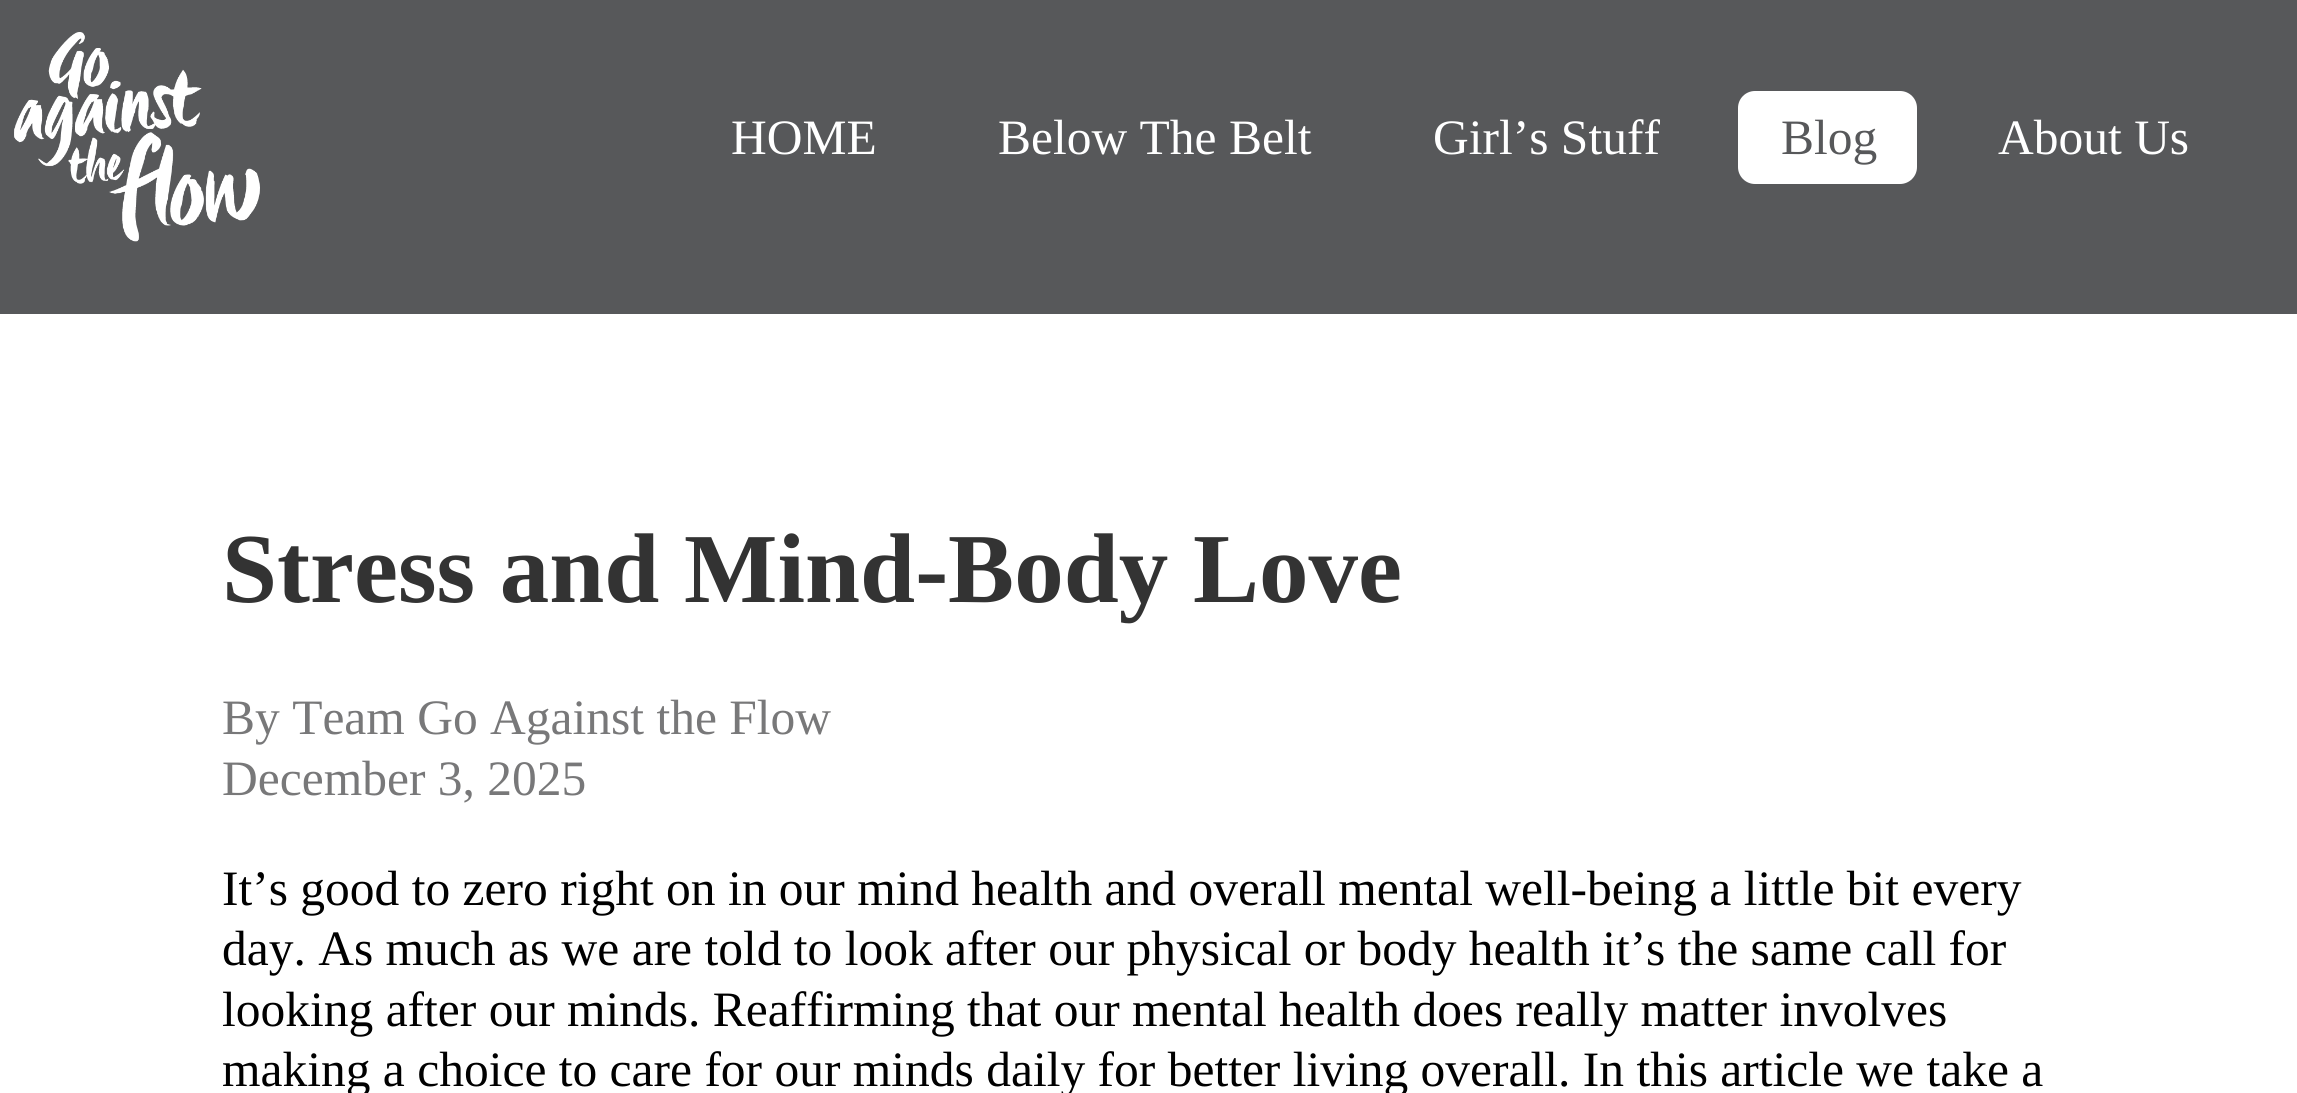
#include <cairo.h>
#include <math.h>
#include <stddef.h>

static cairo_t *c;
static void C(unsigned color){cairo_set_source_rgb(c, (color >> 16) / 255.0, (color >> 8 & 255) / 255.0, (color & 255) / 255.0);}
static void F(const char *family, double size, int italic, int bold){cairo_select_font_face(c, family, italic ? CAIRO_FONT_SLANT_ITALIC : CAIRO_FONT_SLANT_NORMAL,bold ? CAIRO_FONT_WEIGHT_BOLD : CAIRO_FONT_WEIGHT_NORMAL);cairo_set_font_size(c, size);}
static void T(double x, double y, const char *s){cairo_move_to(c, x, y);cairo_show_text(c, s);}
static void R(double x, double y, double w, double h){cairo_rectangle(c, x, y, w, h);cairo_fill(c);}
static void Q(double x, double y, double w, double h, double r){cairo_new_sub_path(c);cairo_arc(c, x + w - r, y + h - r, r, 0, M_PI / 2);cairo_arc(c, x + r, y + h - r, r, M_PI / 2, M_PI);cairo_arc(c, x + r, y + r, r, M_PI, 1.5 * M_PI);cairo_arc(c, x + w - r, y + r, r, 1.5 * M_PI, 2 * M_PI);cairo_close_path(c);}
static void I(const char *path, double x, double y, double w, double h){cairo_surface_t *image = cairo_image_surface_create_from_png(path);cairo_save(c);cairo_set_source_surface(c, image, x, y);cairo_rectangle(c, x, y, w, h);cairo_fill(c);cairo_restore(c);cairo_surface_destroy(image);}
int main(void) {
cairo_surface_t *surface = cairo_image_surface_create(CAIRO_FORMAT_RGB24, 2297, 1093);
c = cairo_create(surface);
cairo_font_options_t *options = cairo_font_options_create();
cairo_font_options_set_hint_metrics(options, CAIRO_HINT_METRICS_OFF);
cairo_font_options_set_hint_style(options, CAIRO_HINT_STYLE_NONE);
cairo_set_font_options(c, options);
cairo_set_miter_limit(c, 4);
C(0xffffff);
cairo_paint(c);
C(0x57585a);
R(0,0,2297,314);
I("1.png",14,32,246,210);
F("Liberation Serif",49.5,0,0);
C(0xffffff);
T(731,154,"HOME");
T(998,154,"Below The Belt");
T(1433,154,"Girl’s Stuff");
Q(1738,91,179,93,17);
cairo_fill(c);
C(0x57585a);
T(1781,154,"Blog");
C(0xffffff);
T(1998,154,"About Us");
F("Liberation Serif",99,0,1);
C(0x333333);
T(222,602,"Stress and Mind-Body Love");
F("Liberation Serif",49.5,0,0);
C(0x787879);
T(222,734,"By Team Go Against the Flow");
T(222,795,"December 3, 2025");
C(0x000000);
T(222,905,"It’s good to zero right on in our mind health and overall mental well-being a little bit every");
T(222,965,"day. As much as we are told to look after our physical or body health it’s the same call for");
T(222,1026,"looking after our minds. Reaffirming that our mental health does really matter involves");
T(222,1086,"making a choice to care for our minds daily for better living overall. In this article we take a");
cairo_surface_write_to_png(surface, "o.png");
cairo_font_options_destroy(options);
cairo_destroy(c);
cairo_surface_destroy(surface);
return 0;
}
